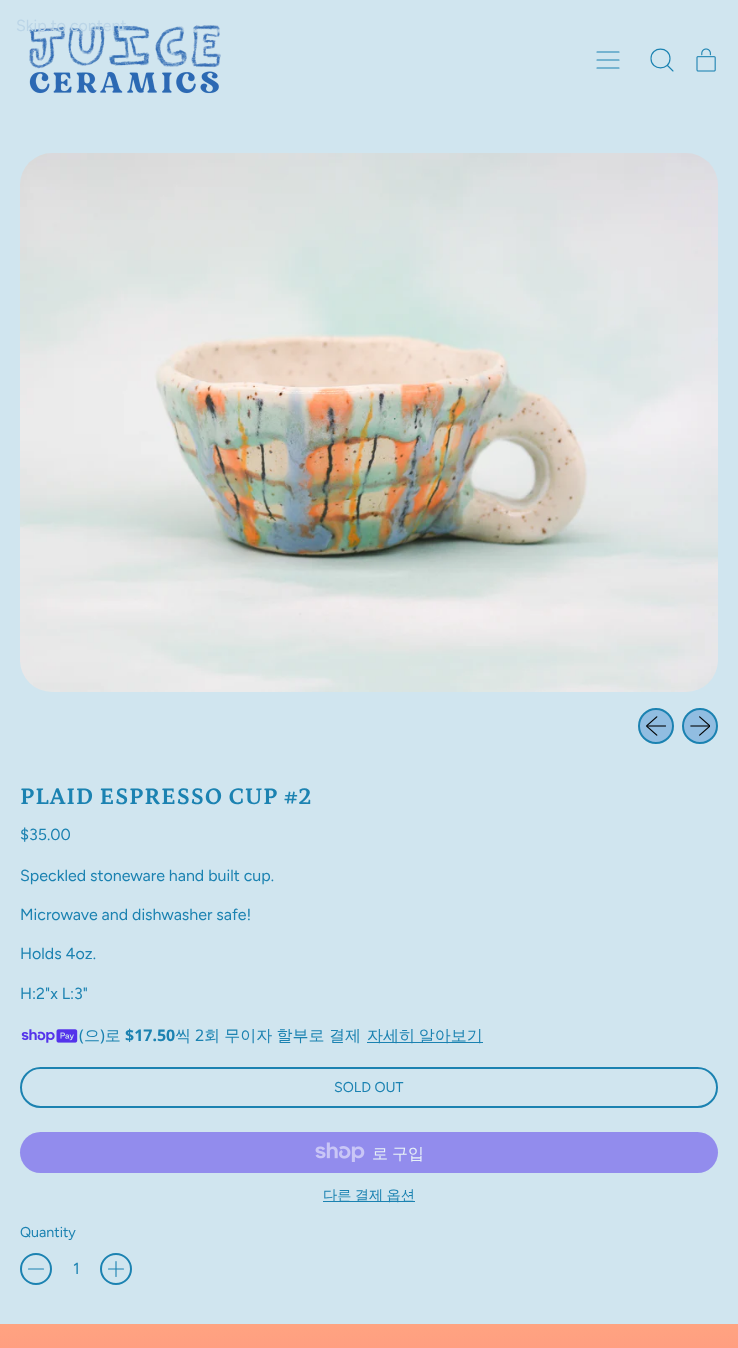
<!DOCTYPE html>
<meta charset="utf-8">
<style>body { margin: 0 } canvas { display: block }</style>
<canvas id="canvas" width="738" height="1348"></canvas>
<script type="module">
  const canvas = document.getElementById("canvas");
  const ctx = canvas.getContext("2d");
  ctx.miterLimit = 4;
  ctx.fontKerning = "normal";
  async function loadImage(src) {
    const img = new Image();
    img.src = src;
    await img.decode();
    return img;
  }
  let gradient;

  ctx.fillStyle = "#d0e5ef";
  ctx.fillRect(0, 0, 738, 1348);
  ctx.drawImage(await loadImage("img1.png"), 29, 25, 192, 69);
  ctx.font = "16px Figtree";
  ctx.fillStyle = "#bbd5e7";
  ctx.fillText("Skip to content", 16, 31);
  ctx.beginPath();
  ctx.moveTo(619, 68);
  ctx.lineTo(597, 68);
  ctx.moveTo(619, 60);
  ctx.lineTo(597, 60);
  ctx.moveTo(619, 52);
  ctx.lineTo(597, 52);
  ctx.strokeStyle = "#1b82b1";
  ctx.lineWidth = 1.1;
  ctx.lineCap = "round";
  ctx.lineJoin = "round";
  ctx.stroke();
  ctx.beginPath();
  ctx.moveTo(651, 58.5);
  ctx.bezierCurveTo(651, 71, 670, 71, 670, 58.5);
  ctx.bezierCurveTo(670, 46, 651, 46, 651, 58.5);
  ctx.closePath();
  ctx.moveTo(673, 71);
  ctx.lineTo(667.5, 65.5);
  ctx.stroke();
  ctx.drawImage(await loadImage("img2.png"), 696, 48, 20, 24);
  ctx.drawImage(await loadImage("img3.png"), 20, 153, 698, 539);
  ctx.fillStyle = "#91bde1";
  ctx.beginPath();
  ctx.arc(656, 726, 17, 0, Math.PI * 2);
  ctx.fill();
  ctx.lineWidth = 2;
  ctx.stroke();
  ctx.drawImage(await loadImage("img4.png"), 646, 716, 20, 20);
  ctx.beginPath();
  ctx.arc(700, 726, 17, 0, Math.PI * 2);
  ctx.fill();
  ctx.stroke();
  ctx.drawImage(await loadImage("img5.png"), 690, 716, 20, 20);
  ctx.letterSpacing = "0.6px";
  ctx.font = "bold 24px Petrona";
  ctx.fillStyle = "#1b82b1";
  ctx.fillText("PLAID ESPRESSO CUP #2", 20, 804);
  ctx.letterSpacing = "0px";
  ctx.font = "16px Figtree";
  ctx.fillText("$35.00", 20, 840);
  ctx.fillText("Speckled stoneware hand built cup.", 20, 881);
  ctx.fillText("Microwave and dishwasher safe!", 20, 920);
  ctx.fillText("Holds 4oz.", 20, 959);
  ctx.fillText("H:2\"x L:3\"", 20, 999);
  ctx.drawImage(await loadImage("img6.png"), 21, 1029, 57, 14);
  ctx.font = "16px Noto Sans";
  ctx.fillText("(", 79, 1041);
  ctx.font = "500 16px WenQuanYi Zen Hei";
  ctx.fillText("으 로", 84, 1041);
  ctx.font = "16px Noto Sans";
  ctx.fillText(")", 100, 1041);
  ctx.font = "bold 16px Noto Sans";
  ctx.fillText("$17.50", 125, 1041);
  ctx.font = "500 16px WenQuanYi Zen Hei";
  ctx.fillText("씩", 175, 1041);
  ctx.font = "16px Noto Sans";
  ctx.fillText("2", 195, 1041);
  ctx.wordSpacing = "-0.5px";
  ctx.font = "500 16px WenQuanYi Zen Hei";
  ctx.fillText("회 무이자 할부로 결제", 204, 1041);
  ctx.fillRect(367, 1042, 116, 1);
  ctx.wordSpacing = "-1px";
  ctx.fillText("자세히 알아보기", 367, 1041);
  ctx.beginPath();
  ctx.roundRect(21, 1068, 696, 39, 19.5);
  ctx.lineJoin = "miter";
  ctx.stroke();
  ctx.wordSpacing = "0px";
  ctx.font = "14.25px Figtree";
  ctx.fillText("SOLD OUT", 334, 1092);
  ctx.fillStyle = "#928ced";
  ctx.beginPath();
  ctx.roundRect(20, 1132, 698, 41, 20.5);
  ctx.fill();
  ctx.drawImage(await loadImage("img7.png"), 315, 1142, 50, 20);
  ctx.font = "500 16px WenQuanYi Zen Hei";
  ctx.fillStyle = "#e8f2f7";
  ctx.fillText("로", 372, 1159);
  ctx.fillText("구입", 392, 1159);
  ctx.fillStyle = "#1b82b1";
  ctx.fillRect(323, 1201, 92, 1);
  ctx.wordSpacing = "-1px";
  ctx.font = "500 14.25px WenQuanYi Zen Hei";
  ctx.fillText("다른 결제 옵션", 323, 1200);
  ctx.wordSpacing = "0px";
  ctx.font = "14.25px Figtree";
  ctx.fillText("Quantity", 20, 1237);
  ctx.beginPath();
  ctx.arc(36, 1269, 15, 0, Math.PI * 2);
  ctx.stroke();
  ctx.beginPath();
  ctx.moveTo(43.5, 1269);
  ctx.lineTo(28.5, 1269);
  ctx.lineWidth = 1.1;
  ctx.lineJoin = "round";
  ctx.stroke();
  ctx.font = "16px Figtree";
  ctx.fillText("1", 73, 1274);
  ctx.beginPath();
  ctx.arc(116, 1269, 15, 0, Math.PI * 2);
  ctx.lineWidth = 2;
  ctx.stroke();
  ctx.beginPath();
  ctx.moveTo(116, 1261.5);
  ctx.lineTo(116, 1276.5);
  ctx.moveTo(123.5, 1269);
  ctx.lineTo(108.5, 1269);
  ctx.lineWidth = 1.1;
  ctx.stroke();
  gradient = ctx.createLinearGradient(369, 1324, 369, 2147);
  gradient.addColorStop(0, "#ffa381");
  gradient.addColorStop(0.49, "#fe5b7c");
  gradient.addColorStop(1, "#ff8ca2");
  ctx.fillStyle = gradient;
  ctx.fillRect(0, 1324, 738, 24);
</script>
